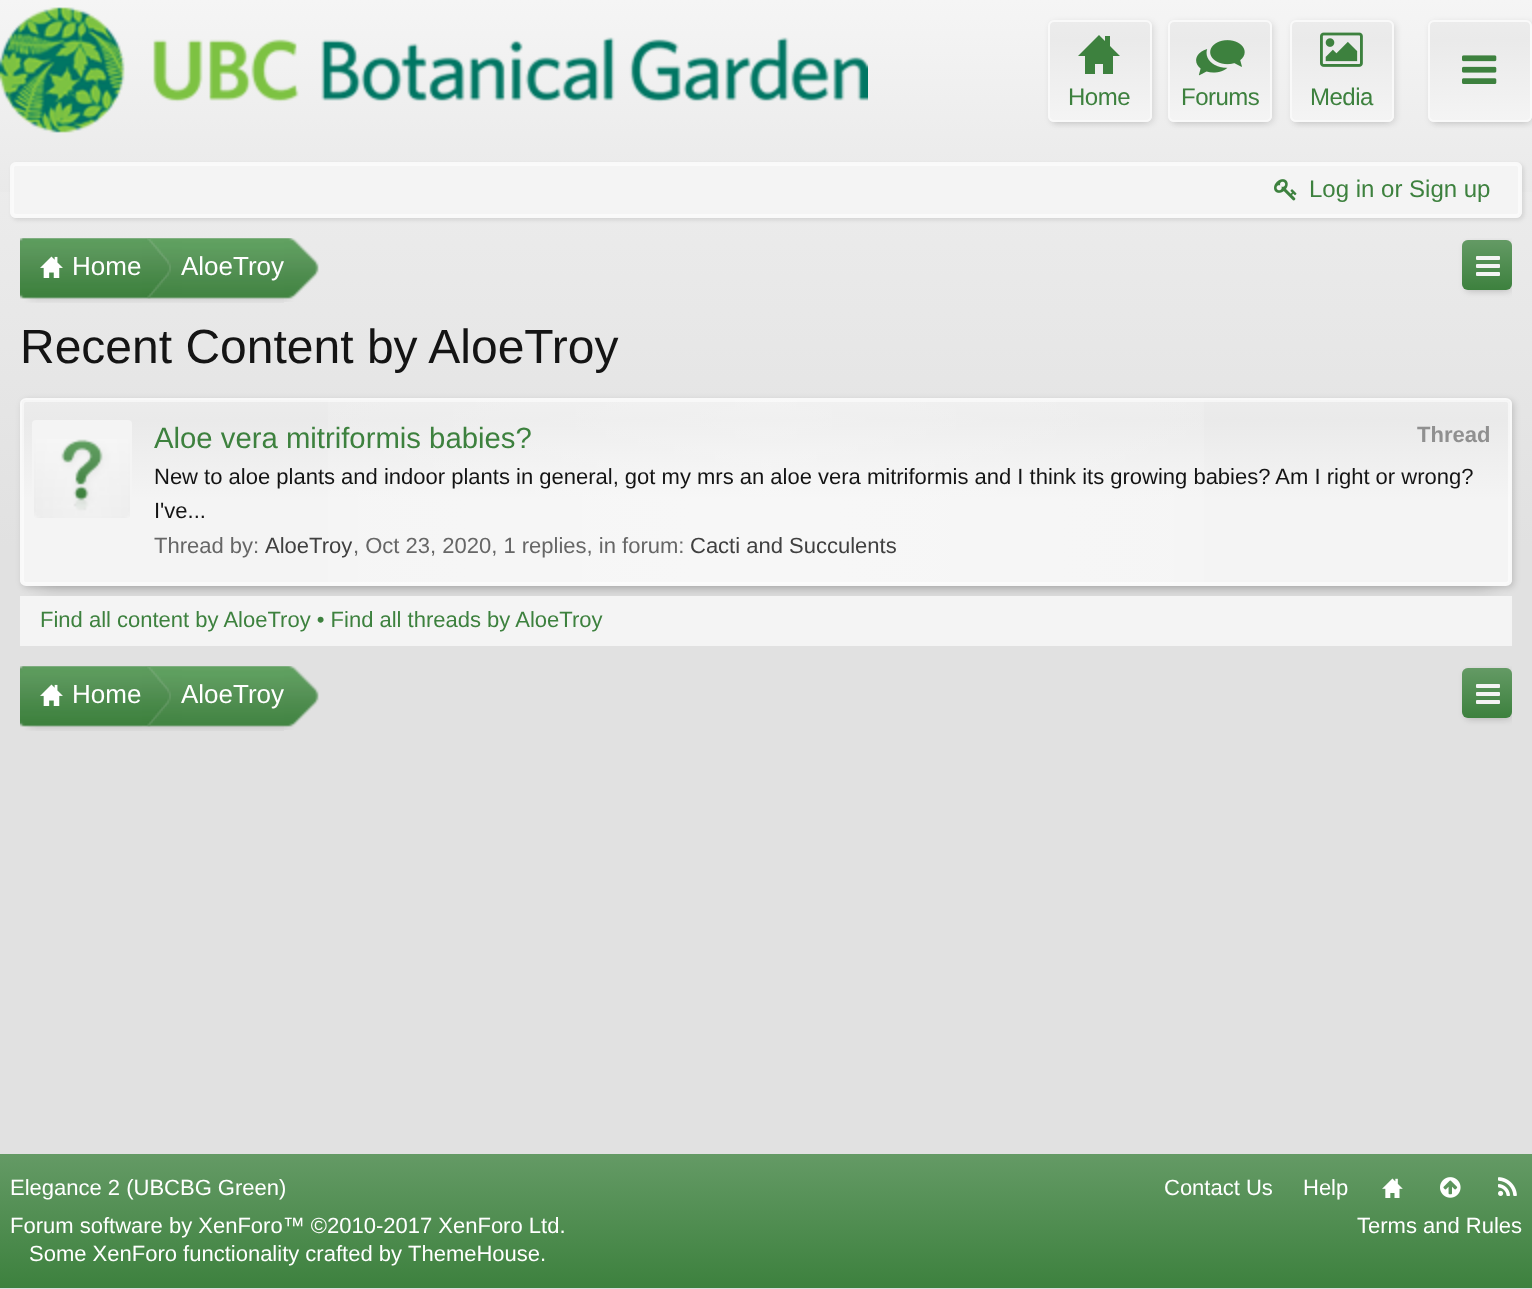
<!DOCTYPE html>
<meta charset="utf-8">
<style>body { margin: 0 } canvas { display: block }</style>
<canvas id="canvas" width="1532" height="1289"></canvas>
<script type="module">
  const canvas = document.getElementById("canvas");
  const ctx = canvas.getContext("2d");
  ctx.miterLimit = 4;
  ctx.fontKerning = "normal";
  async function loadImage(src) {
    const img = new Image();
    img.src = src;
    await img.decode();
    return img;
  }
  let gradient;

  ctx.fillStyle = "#ffffff";
  ctx.fillRect(0, 0, 1532, 1289);
  gradient = ctx.createLinearGradient(766, 0, 766, 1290);
  gradient.addColorStop(0, "#f5f5f5");
  gradient.addColorStop(0.31, "#dddddd");
  ctx.fillStyle = gradient;
  ctx.fillRect(0, 0, 1532, 1289);
  ctx.drawImage(await loadImage("img1.png"), 0, 7, 868, 126);
  ctx.fillStyle = "rgba(0, 0, 0, 0.1)";
  ctx.filter = "blur(3px)";
  ctx.beginPath();
  ctx.rect(1054, 32, 92, 90);
  ctx.fill();
  ctx.filter = "none";
  ctx.filter = "blur(3px)";
  ctx.beginPath();
  ctx.roundRect(1050, 22, 104, 102, 6);
  ctx.fill();
  ctx.filter = "none";
  gradient = ctx.createLinearGradient(1100, 20, 1100, 122);
  gradient.addColorStop(0, "#ececec");
  gradient.addColorStop(0.2, "#eaeaea");
  gradient.addColorStop(0.98, "#f4f4f4");
  ctx.fillStyle = gradient;
  ctx.beginPath();
  ctx.roundRect(1048, 20, 104, 102, 6);
  ctx.fill();
  ctx.beginPath();
  ctx.roundRect(1049, 21, 102, 100, 5);
  ctx.strokeStyle = "rgba(255, 255, 255, 0.3)";
  ctx.lineWidth = 2;
  ctx.stroke();
  ctx.beginPath();
  ctx.roundRect(1049, 21, 102, 100, 5);
  ctx.strokeStyle = "#f9f9f9";
  ctx.stroke();
  ctx.fillStyle = "#3d813e";
  ctx.beginPath();
  ctx.moveTo(1085, 74);
  ctx.lineTo(1085, 56);
  ctx.lineTo(1078, 56);
  ctx.lineTo(1099, 35);
  ctx.lineTo(1105, 41);
  ctx.lineTo(1105, 36);
  ctx.lineTo(1110, 36);
  ctx.lineTo(1110, 46);
  ctx.lineTo(1120, 56);
  ctx.lineTo(1113, 56);
  ctx.lineTo(1113, 74);
  ctx.lineTo(1103, 74);
  ctx.lineTo(1103, 64);
  ctx.lineTo(1095, 64);
  ctx.lineTo(1095, 74);
  ctx.closePath();
  ctx.fill();
  ctx.letterSpacing = "-0.5px";
  ctx.font = "24px Liberation Sans";
  ctx.fillText("Home", 1068, 105);
  ctx.fillStyle = "rgba(0, 0, 0, 0.1)";
  ctx.filter = "blur(3px)";
  ctx.beginPath();
  ctx.rect(1174, 32, 92, 90);
  ctx.fill();
  ctx.filter = "none";
  ctx.filter = "blur(3px)";
  ctx.beginPath();
  ctx.roundRect(1170, 22, 104, 102, 6);
  ctx.fill();
  ctx.filter = "none";
  gradient = ctx.createLinearGradient(1220, 20, 1220, 122);
  gradient.addColorStop(0, "#ececec");
  gradient.addColorStop(0.2, "#eaeaea");
  gradient.addColorStop(0.98, "#f4f4f4");
  ctx.fillStyle = gradient;
  ctx.beginPath();
  ctx.roundRect(1168, 20, 104, 102, 6);
  ctx.fill();
  ctx.beginPath();
  ctx.roundRect(1169, 21, 102, 100, 5);
  ctx.strokeStyle = "rgba(255, 255, 255, 0.3)";
  ctx.stroke();
  ctx.beginPath();
  ctx.roundRect(1169, 21, 102, 100, 5);
  ctx.strokeStyle = "#f9f9f9";
  ctx.stroke();
  ctx.drawImage(await loadImage("img2.png"), 1196, 40, 49, 36);
  ctx.fillStyle = "#3d813e";
  ctx.fillText("Forums", 1181, 105);
  ctx.fillStyle = "rgba(0, 0, 0, 0.1)";
  ctx.filter = "blur(3px)";
  ctx.beginPath();
  ctx.rect(1296, 32, 92, 90);
  ctx.fill();
  ctx.filter = "none";
  ctx.filter = "blur(3px)";
  ctx.beginPath();
  ctx.roundRect(1292, 22, 104, 102, 6);
  ctx.fill();
  ctx.filter = "none";
  gradient = ctx.createLinearGradient(1342, 20, 1342, 122);
  gradient.addColorStop(0, "#ececec");
  gradient.addColorStop(0.2, "#eaeaea");
  gradient.addColorStop(0.98, "#f4f4f4");
  ctx.fillStyle = gradient;
  ctx.beginPath();
  ctx.roundRect(1290, 20, 104, 102, 6);
  ctx.fill();
  ctx.beginPath();
  ctx.roundRect(1291, 21, 102, 100, 5);
  ctx.strokeStyle = "rgba(255, 255, 255, 0.3)";
  ctx.stroke();
  ctx.beginPath();
  ctx.roundRect(1291, 21, 102, 100, 5);
  ctx.strokeStyle = "#f9f9f9";
  ctx.stroke();
  ctx.drawImage(await loadImage("img3.png"), 1320, 32, 43, 35);
  ctx.fillStyle = "#3d813e";
  ctx.fillText("Media", 1310, 105);
  ctx.fillStyle = "rgba(0, 0, 0, 0.1)";
  ctx.filter = "blur(3px)";
  ctx.beginPath();
  ctx.rect(1434, 32, 92, 90);
  ctx.fill();
  ctx.filter = "none";
  ctx.filter = "blur(3px)";
  ctx.beginPath();
  ctx.roundRect(1430, 22, 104, 102, 6);
  ctx.fill();
  ctx.filter = "none";
  gradient = ctx.createLinearGradient(1480, 20, 1480, 122);
  gradient.addColorStop(0, "#ececec");
  gradient.addColorStop(0.2, "#eaeaea");
  gradient.addColorStop(0.98, "#f4f4f4");
  ctx.fillStyle = gradient;
  ctx.beginPath();
  ctx.roundRect(1428, 20, 104, 102, 6);
  ctx.fill();
  ctx.beginPath();
  ctx.roundRect(1429, 21, 102, 100, 5);
  ctx.strokeStyle = "rgba(255, 255, 255, 0.3)";
  ctx.stroke();
  ctx.beginPath();
  ctx.roundRect(1429, 21, 102, 100, 5);
  ctx.strokeStyle = "#f9f9f9";
  ctx.stroke();
  ctx.drawImage(await loadImage("img4.png"), 1462, 55, 35, 29);
  gradient = ctx.createLinearGradient(766, 142, 766, 1154);
  gradient.addColorStop(0, "#ededed");
  gradient.addColorStop(0.4, "#e1e1e1");
  ctx.fillStyle = gradient;
  ctx.fillRect(0, 192, 1532, 962);
  ctx.fillStyle = "rgba(0, 0, 0, 0.1)";
  ctx.filter = "blur(2px)";
  ctx.beginPath();
  ctx.roundRect(12, 164, 1512, 56, 6);
  ctx.fill();
  ctx.filter = "none";
  ctx.fillStyle = "#f4f4f4";
  ctx.beginPath();
  ctx.roundRect(10, 162, 1512, 56, 6);
  ctx.fill();
  ctx.beginPath();
  ctx.roundRect(13, 165, 1506, 50, 3);
  ctx.strokeStyle = "#fafafa";
  ctx.stroke();
  ctx.beginPath();
  ctx.roundRect(11, 163, 1510, 54, 5);
  ctx.strokeStyle = "#f9f9f9";
  ctx.stroke();
  ctx.drawImage(await loadImage("img5.png"), 1274, 179, 23, 22);
  ctx.letterSpacing = "0px";
  ctx.fillStyle = "#3d813e";
  ctx.fillText("Log in or Sign up", 1309, 197);
  ctx.drawImage(await loadImage("img6.png"), 60, 238, 82, 65);
  ctx.drawImage(await loadImage("img7.png"), 20, 238, 40, 65);
  ctx.drawImage(await loadImage("img8.png"), 40, 256, 23, 22);
  ctx.font = "26px Liberation Sans";
  ctx.fillStyle = "#ffffff";
  ctx.fillText("Home", 72, 275);
  ctx.drawImage(await loadImage("img9.png"), 142, 238, 29, 61);
  ctx.drawImage(await loadImage("img10.png"), 182, 238, 102, 65);
  ctx.drawImage(await loadImage("img11.png"), 142, 238, 40, 65);
  ctx.fillText("AloeTroy", 181, 275);
  ctx.drawImage(await loadImage("img12.png"), 284, 238, 35, 64);
  ctx.fillStyle = "rgba(0, 0, 0, 0.1)";
  ctx.filter = "blur(3px)";
  ctx.beginPath();
  ctx.rect(1468, 252, 38, 38);
  ctx.fill();
  ctx.filter = "none";
  ctx.save();
  ctx.beginPath();
  ctx.rect(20, 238, 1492, 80);
  ctx.clip();
  ctx.filter = "blur(3px)";
  ctx.beginPath();
  ctx.roundRect(1464, 242, 50, 50, 6);
  ctx.fill();
  ctx.filter = "none";
  ctx.restore();
  ctx.fillStyle = "#3d813e";
  ctx.beginPath();
  ctx.roundRect(1462, 240, 50, 50, 6);
  ctx.fill();
  gradient = ctx.createLinearGradient(1487, 240, 1487, 290);
  gradient.addColorStop(0, "rgba(255, 255, 255, 0.2)");
  gradient.addColorStop(1, "rgba(255, 255, 255, 0)");
  ctx.fillStyle = gradient;
  ctx.beginPath();
  ctx.roundRect(1462, 240, 50, 50, 6);
  ctx.fill();
  ctx.drawImage(await loadImage("img13.png"), 1476, 256, 24, 20);
  ctx.font = "48px Liberation Sans";
  ctx.fillStyle = "#141414";
  ctx.fillText("Recent Content by AloeTroy", 20, 363);
  ctx.fillStyle = "rgba(0, 0, 0, 0.2)";
  ctx.filter = "blur(10px)";
  ctx.beginPath();
  ctx.rect(40, 438, 1452, 148);
  ctx.fill();
  ctx.filter = "none";
  ctx.fillStyle = "rgba(0, 0, 0, 0.15)";
  ctx.filter = "blur(3px)";
  ctx.beginPath();
  ctx.roundRect(22, 400, 1492, 188, 6);
  ctx.fill();
  ctx.filter = "none";
  ctx.save();
  ctx.beginPath();
  ctx.roundRect(20, 398, 1492, 188, 6);
  ctx.clip();
  gradient = ctx.createLinearGradient(766, 400, 766, 584);
  gradient.addColorStop(0, "#ececec");
  gradient.addColorStop(0.11, "#eaeaea");
  gradient.addColorStop(0.54, "#f4f4f4");
  ctx.fillStyle = gradient;
  ctx.fillRect(20, 400, 1492, 184);
  ctx.restore();
  gradient = ctx.createLinearGradient(22, 492, 1510, 492);
  gradient.addColorStop(0, "rgba(255, 255, 255, 0)");
  gradient.addColorStop(0.5, "rgba(255, 255, 255, 0.3)");
  gradient.addColorStop(1, "rgba(255, 255, 255, 0)");
  ctx.fillStyle = gradient;
  ctx.fillRect(328, 400, 876, 184);
  ctx.beginPath();
  ctx.roundRect(23, 401, 1486, 182, 3);
  ctx.strokeStyle = "rgba(255, 255, 255, 0.5)";
  ctx.stroke();
  ctx.beginPath();
  ctx.roundRect(21, 399, 1490, 186, 5);
  ctx.strokeStyle = "#f9f9f9";
  ctx.stroke();
  ctx.fillStyle = "#f4f4f4";
  ctx.beginPath();
  ctx.roundRect(32, 420, 100, 100, 4);
  ctx.fill();
  ctx.drawImage(await loadImage("img14.png"), 34, 439, 96, 79);
  ctx.font = "29.3px Liberation Sans";
  ctx.fillStyle = "#3d813e";
  ctx.fillText("Aloe vera mitriformis babies?", 154, 448);
  ctx.font = "bold 22px Liberation Sans";
  ctx.fillStyle = "#909090";
  ctx.fillText("Thread", 1417, 442);
  ctx.font = "22px Liberation Sans";
  ctx.fillStyle = "#141414";
  ctx.fillText("New to aloe plants and indoor plants in general, got my mrs an aloe vera mitriformis and I think its growing babies? Am I right or wrong?", 154, 484);
  ctx.fillText("I've...", 154, 518);
  ctx.fillStyle = "#666666";
  ctx.fillText("Thread by:", 154, 553);
  ctx.fillStyle = "#404040";
  ctx.fillText("AloeTroy", 265, 553);
  ctx.fillStyle = "#666666";
  ctx.fillText(", Oct 23, 2020, 1 replies, in forum:", 353, 553);
  ctx.fillStyle = "#404040";
  ctx.fillText("Cacti and Succulents", 690, 553);
  ctx.fillStyle = "#f4f4f4";
  ctx.fillRect(20, 596, 1492, 50);
  ctx.fillStyle = "#3d813e";
  ctx.fillText("Find all content by AloeTroy • Find all threads by AloeTroy", 40, 627);
  ctx.drawImage(await loadImage("img15.png"), 60, 666, 82, 65);
  ctx.drawImage(await loadImage("img16.png"), 20, 666, 40, 65);
  ctx.drawImage(await loadImage("img8.png"), 40, 684, 23, 22);
  ctx.font = "26px Liberation Sans";
  ctx.fillStyle = "#ffffff";
  ctx.fillText("Home", 72, 703);
  ctx.drawImage(await loadImage("img17.png"), 142, 666, 29, 61);
  ctx.drawImage(await loadImage("img18.png"), 182, 666, 102, 65);
  ctx.drawImage(await loadImage("img19.png"), 142, 666, 40, 65);
  ctx.fillText("AloeTroy", 181, 703);
  ctx.drawImage(await loadImage("img20.png"), 284, 666, 35, 64);
  ctx.fillStyle = "rgba(0, 0, 0, 0.1)";
  ctx.filter = "blur(3px)";
  ctx.beginPath();
  ctx.rect(1468, 680, 38, 38);
  ctx.fill();
  ctx.filter = "none";
  ctx.save();
  ctx.beginPath();
  ctx.rect(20, 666, 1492, 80);
  ctx.clip();
  ctx.filter = "blur(3px)";
  ctx.beginPath();
  ctx.roundRect(1464, 670, 50, 50, 6);
  ctx.fill();
  ctx.filter = "none";
  ctx.restore();
  ctx.fillStyle = "#3d813e";
  ctx.beginPath();
  ctx.roundRect(1462, 668, 50, 50, 6);
  ctx.fill();
  gradient = ctx.createLinearGradient(1487, 668, 1487, 718);
  gradient.addColorStop(0, "rgba(255, 255, 255, 0.2)");
  gradient.addColorStop(1, "rgba(255, 255, 255, 0)");
  ctx.fillStyle = gradient;
  ctx.beginPath();
  ctx.roundRect(1462, 668, 50, 50, 6);
  ctx.fill();
  ctx.drawImage(await loadImage("img13.png"), 1476, 684, 24, 20);
  gradient = ctx.createLinearGradient(766, 1154, 766, 1288);
  gradient.addColorStop(0, "#649a65");
  gradient.addColorStop(1, "#3d813e");
  ctx.fillStyle = gradient;
  ctx.fillRect(0, 1154, 1532, 134);
  ctx.font = "22px Liberation Sans";
  ctx.fillStyle = "#ffffff";
  ctx.fillText("Elegance 2 (UBCBG Green)", 10, 1195);
  ctx.fillText("Contact Us", 1164, 1195);
  ctx.fillText("Help", 1303, 1195);
  ctx.drawImage(await loadImage("img21.png"), 1382, 1178, 21, 20);
  ctx.drawImage(await loadImage("img22.png"), 1440, 1177, 21, 21);
  ctx.drawImage(await loadImage("img23.png"), 1498, 1177, 19, 19);
  ctx.fillText("Forum software by XenForo™ ©2010-2017 XenForo Ltd.", 10, 1233);
  ctx.fillText("Some XenForo functionality crafted by", 29, 1261);
  ctx.fillText("ThemeHouse.", 408, 1261);
  ctx.fillText("Terms and Rules", 1357, 1233);
</script>
